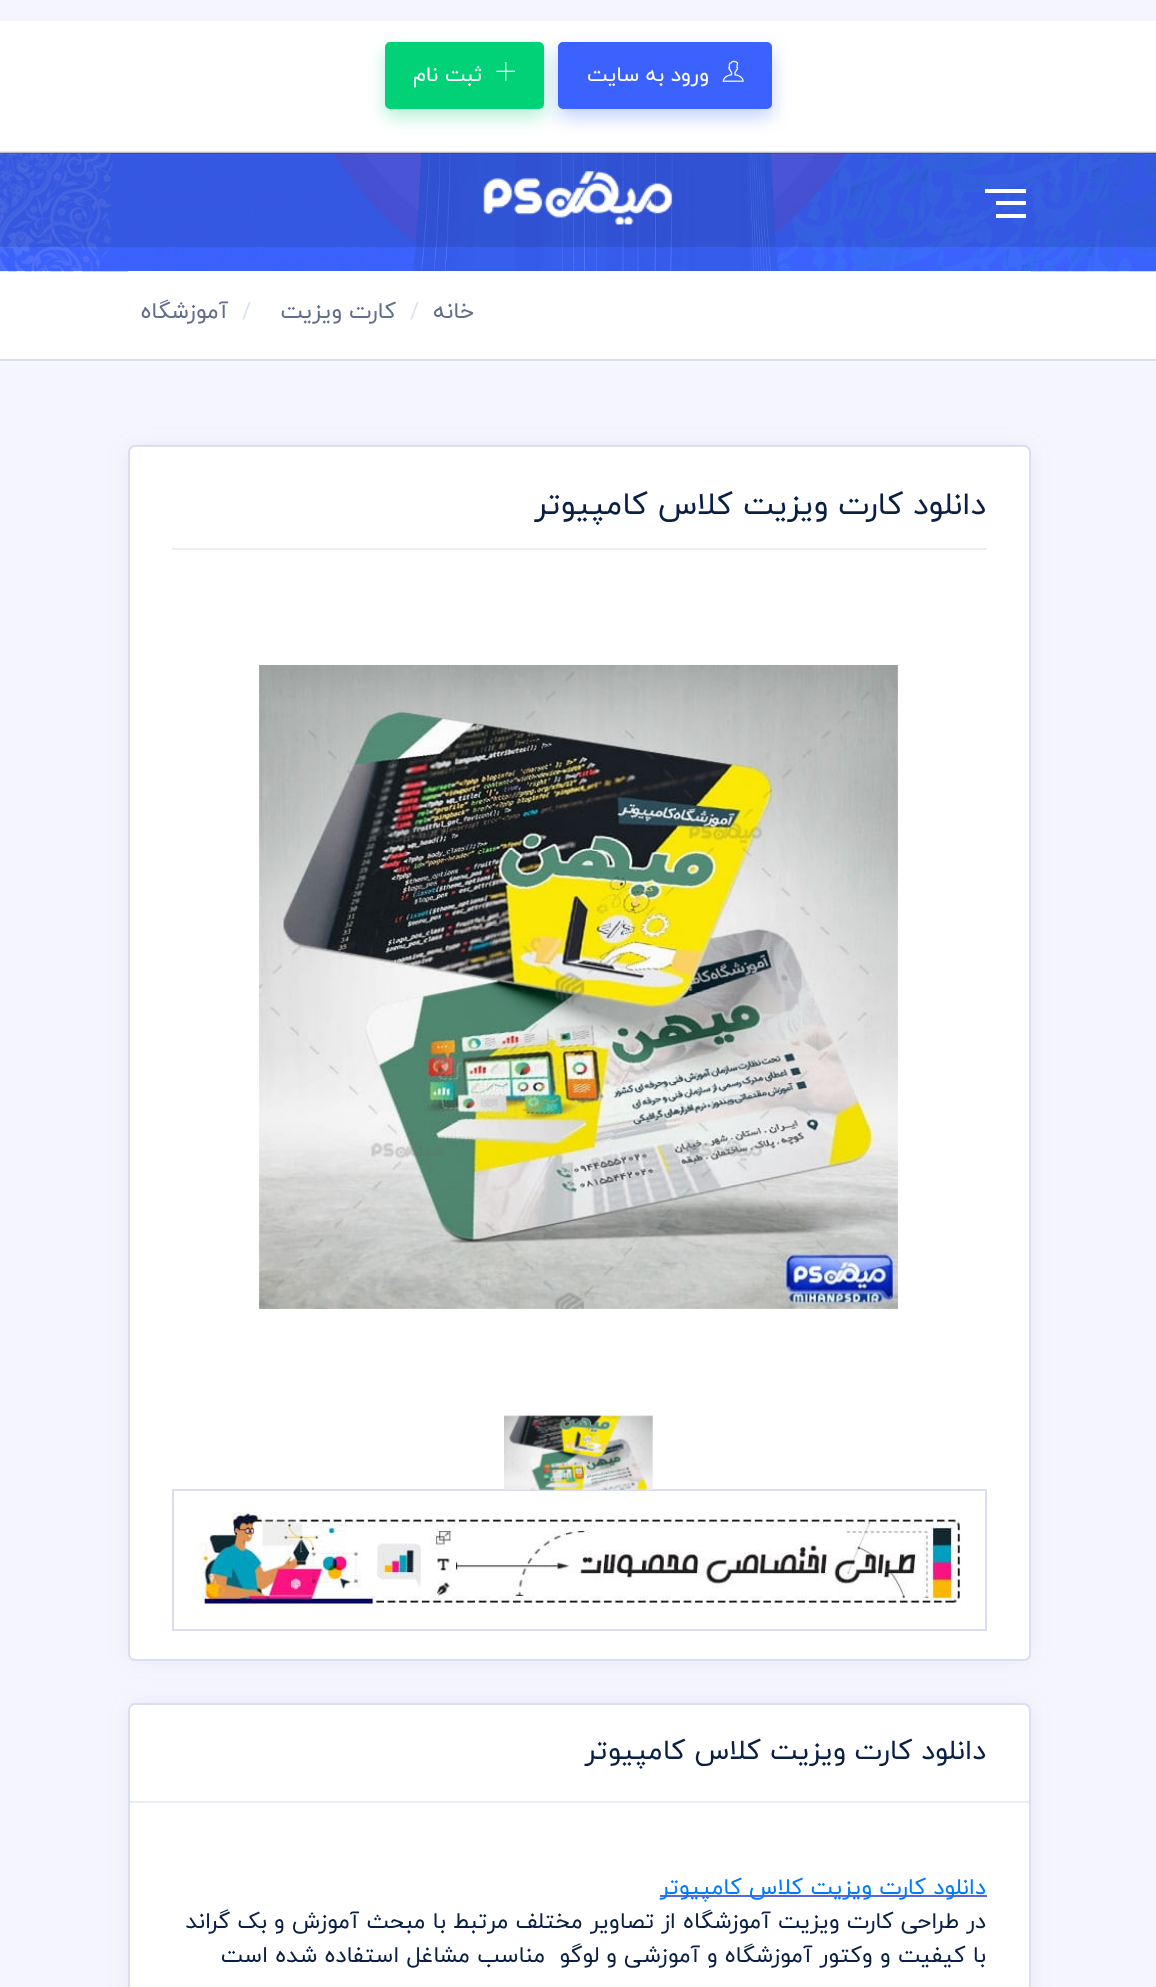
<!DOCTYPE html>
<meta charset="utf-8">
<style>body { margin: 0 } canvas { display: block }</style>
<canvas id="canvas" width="1156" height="1987"></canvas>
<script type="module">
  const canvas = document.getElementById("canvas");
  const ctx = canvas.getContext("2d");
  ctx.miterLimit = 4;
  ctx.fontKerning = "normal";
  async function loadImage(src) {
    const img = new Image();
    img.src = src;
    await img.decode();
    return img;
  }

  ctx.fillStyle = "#f5f6fd";
  ctx.fillRect(0, 0, 1156, 1987);
  ctx.fillStyle = "#ffffff";
  ctx.fillRect(0, 271, 1156, 88);
  ctx.drawImage(await loadImage("img1.png"), 0, 153, 1156, 119);
  ctx.fillRect(0, 21, 1156, 130);
  ctx.fillStyle = "#e6e7f5";
  ctx.fillRect(0, 151, 1156, 2);
  ctx.fillStyle = "rgba(59, 98, 254, 0.3)";
  ctx.filter = "blur(9px)";
  ctx.beginPath();
  ctx.roundRect(558, 51, 214, 66, 5);
  ctx.fill();
  ctx.filter = "none";
  ctx.fillStyle = "#3b62fe";
  ctx.beginPath();
  ctx.roundRect(559, 43, 212, 65, 4);
  ctx.fill();
  ctx.strokeStyle = "#3b62fe";
  ctx.lineWidth = 2;
  ctx.stroke();
  ctx.drawImage(await loadImage("img2.png"), 722, 60, 22, 22);
  ctx.direction = "rtl";
  ctx.font = "21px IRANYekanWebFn";
  ctx.fillStyle = "#ffffff";
  ctx.fillText("ورود به سایت", 709, 81);
  ctx.fillStyle = "rgba(1, 210, 119, 0.3)";
  ctx.filter = "blur(9px)";
  ctx.beginPath();
  ctx.roundRect(385, 51, 159, 66, 5);
  ctx.fill();
  ctx.filter = "none";
  ctx.fillStyle = "#01d277";
  ctx.beginPath();
  ctx.roundRect(386, 43, 157, 65, 4);
  ctx.fill();
  ctx.strokeStyle = "#01d277";
  ctx.stroke();
  ctx.drawImage(await loadImage("img3.png"), 496, 62, 19, 19);
  ctx.fillStyle = "#ffffff";
  ctx.fillText("ثبت نام", 482, 81);
  ctx.fillStyle = "rgba(0, 0, 0, 0.1)";
  ctx.fillRect(0, 152, 1156, 95);
  ctx.fillRect(0, 152, 1156, 2);
  ctx.fillStyle = "#ffffff";
  ctx.fillRect(996, 201, 30, 4);
  ctx.fillRect(985, 189, 41, 4);
  ctx.fillRect(996, 214, 30, 4);
  ctx.drawImage(await loadImage("img4.png"), 483, 171, 190, 54);
  ctx.fillStyle = "#dbddf1";
  ctx.fillRect(0, 359, 1156, 2);
  ctx.fillStyle = "#ffffff";
  ctx.fillRect(128, 271, 903, 1);
  ctx.font = "22.75px IRANYekanWebFn";
  ctx.fillStyle = "#636d8c";
  ctx.fillText("خانه", 474, 318);
  ctx.direction = "ltr";
  ctx.fillStyle = "#dce3ef";
  ctx.fillText("/", 410, 318);
  ctx.direction = "rtl";
  ctx.fillStyle = "#636d8c";
  ctx.fillText("کارت ویزیت", 396, 318);
  ctx.direction = "ltr";
  ctx.fillStyle = "#dce3ef";
  ctx.fillText("/", 242, 318);
  ctx.direction = "rtl";
  ctx.fillStyle = "#636d8c";
  ctx.fillText("آموزشگاه", 228, 318);
  ctx.fillStyle = "rgba(21, 17, 148, 0.06)";
  ctx.filter = "blur(10.5px)";
  ctx.beginPath();
  ctx.roundRect(128, 445, 903, 1216, 7);
  ctx.fill();
  ctx.filter = "none";
  ctx.fillStyle = "#ffffff";
  ctx.beginPath();
  ctx.roundRect(129, 446, 901, 1214, 6);
  ctx.fill();
  ctx.strokeStyle = "#dbddf1";
  ctx.stroke();
  ctx.fillStyle = "#eeeeee";
  ctx.fillRect(172, 548, 815, 2);
  ctx.font = "31.5px IRANYekanWebFn";
  ctx.fillStyle = "#0a1f44";
  ctx.fillText("دانلود کارت ویزیت کلاس کامپیوتر", 986, 514);
  ctx.drawImage(await loadImage("img5.png"), 259, 665, 639, 644);
  ctx.strokeRect(173, 1490, 813, 140);
  ctx.drawImage(await loadImage("img6.png"), 504, 1415, 149, 75);
  ctx.drawImage(await loadImage("img7.png"), 194, 1512, 767, 92);
  ctx.fillStyle = "rgba(21, 17, 148, 0.06)";
  ctx.filter = "blur(10.5px)";
  ctx.beginPath();
  ctx.roundRect(128, 1703, 903, 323, 7);
  ctx.fill();
  ctx.filter = "none";
  ctx.fillStyle = "#ffffff";
  ctx.beginPath();
  ctx.roundRect(129, 1704, 901, 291, 6);
  ctx.fill();
  ctx.stroke();
  ctx.fillStyle = "#eaebf7";
  ctx.fillRect(130, 1801, 899, 2);
  ctx.font = "28px IRANYekanWebFn";
  ctx.fillStyle = "#0a1f44";
  ctx.fillText("دانلود کارت ویزیت کلاس کامپیوتر", 986, 1759);
  ctx.fillStyle = "#5867dd";
  ctx.fillRect(660, 1895, 327, 2);
  ctx.font = "22.75px IRANYekanWebFn";
  ctx.fillStyle = "#007bff";
  ctx.fillText("دانلود کارت ویزیت کلاس کامپیوتر", 986, 1894);
  ctx.fillStyle = "#0a1f44";
  ctx.fillText("در طراحی کارت ویزیت آموزشگاه از تصاویر مختلف مرتبط با مبحث آموزش و بک گراند", 986, 1928);
  ctx.fillText("با کیفیت و وکتور آموزشگاه و آموزشی و لوگو  مناسب مشاغل استفاده شده است", 986, 1962);
</script>
